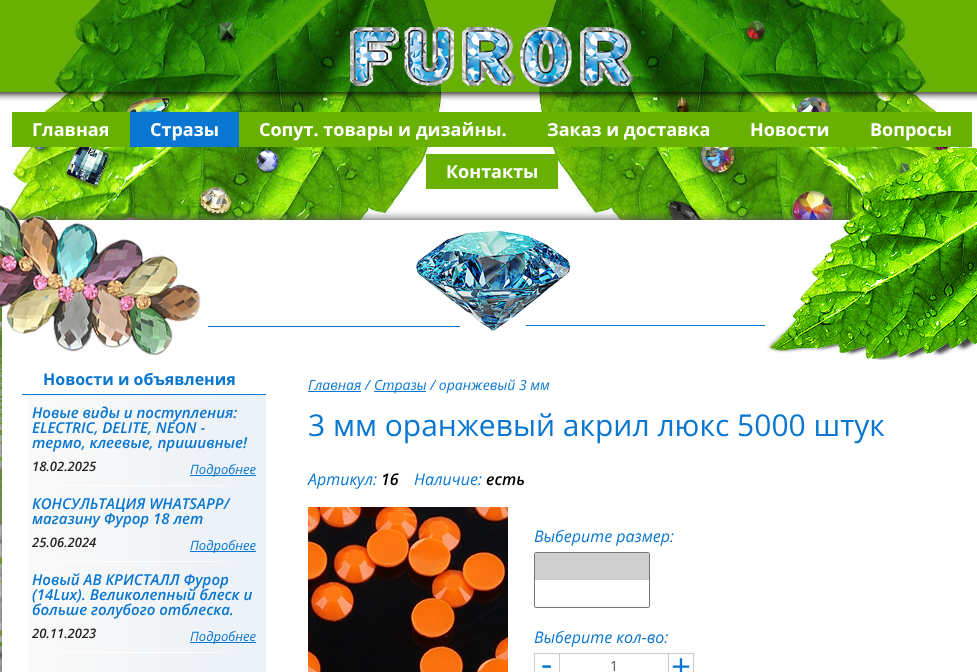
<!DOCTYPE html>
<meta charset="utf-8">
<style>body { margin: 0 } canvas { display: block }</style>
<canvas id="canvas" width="977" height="672"></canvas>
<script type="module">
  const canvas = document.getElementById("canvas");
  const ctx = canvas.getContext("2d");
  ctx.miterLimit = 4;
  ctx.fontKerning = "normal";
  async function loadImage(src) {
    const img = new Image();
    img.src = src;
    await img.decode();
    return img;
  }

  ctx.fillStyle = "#ffffff";
  ctx.fillRect(0, 0, 977, 672);
  ctx.drawImage(await loadImage("img1.png"), 0, 0, 977, 672);
  ctx.drawImage(await loadImage("img2.png"), 350, 27, 284, 60);
  ctx.fillStyle = "#555555";
  ctx.filter = "blur(5px)";
  ctx.beginPath();
  ctx.rect(1, 219, 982, 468);
  ctx.fill();
  ctx.filter = "none";
  ctx.fillStyle = "#ffffff";
  ctx.fillRect(2, 220, 975, 452);
  ctx.drawImage(await loadImage("img3.png"), 0, 146, 977, 214);
  ctx.fillStyle = "#68b102";
  ctx.fillRect(12, 112, 118, 35);
  ctx.font = "bold 18px Open Sans";
  ctx.fillStyle = "#ffffff";
  ctx.fillText("Главная", 32, 136);
  ctx.fillStyle = "#0977d1";
  ctx.fillRect(130, 112, 109, 35);
  ctx.fillStyle = "#ffffff";
  ctx.fillText("Стразы", 150, 136);
  ctx.fillStyle = "#68b102";
  ctx.fillRect(239, 112, 733, 35);
  ctx.fillStyle = "#ffffff";
  ctx.fillText("Сопут. товары и дизайны.", 259, 136);
  ctx.fillText("Заказ и доставка", 547, 136);
  ctx.fillText("Новости", 750, 136);
  ctx.fillText("Вопросы", 870, 136);
  ctx.fillStyle = "#68b102";
  ctx.fillRect(426, 154, 132, 35);
  ctx.fillStyle = "#ffffff";
  ctx.fillText("Контакты", 446, 178);
  ctx.font = "bold 16px Open Sans";
  ctx.fillStyle = "#0977d1";
  ctx.fillText("Новости и объявления", 43, 385);
  ctx.drawImage(await loadImage("img4.png"), 28, 395, 238, 277);
  ctx.fillRect(22, 394, 244, 1);
  ctx.drawImage(await loadImage("img5.png"), 61, 485, 175, 1);
  ctx.font = "italic 600 15px Open Sans";
  ctx.fillText("Новые виды и поступления:", 32, 418);
  ctx.fillText("ELECTRIC, DELITE, NEON -", 32, 433);
  ctx.fillText("термо, клеевые, пришивные!", 32, 448);
  ctx.font = "italic 600 13px Open Sans";
  ctx.fillStyle = "#232323";
  ctx.fillText("18.02.2025", 32, 471);
  ctx.fillStyle = "#0977d1";
  ctx.fillRect(190, 475, 66, 1);
  ctx.font = "italic 13px Open Sans";
  ctx.fillText("Подробнее", 190, 474);
  ctx.drawImage(await loadImage("img5.png"), 61, 561, 175, 1);
  ctx.font = "italic 600 15px Open Sans";
  ctx.fillText("КОНСУЛЬТАЦИЯ WHATSAPP/", 32, 509);
  ctx.fillText("магазину Фурор 18 лет", 32, 524);
  ctx.font = "italic 600 13px Open Sans";
  ctx.fillStyle = "#232323";
  ctx.fillText("25.06.2024", 32, 547);
  ctx.fillStyle = "#0977d1";
  ctx.fillRect(190, 551, 66, 1);
  ctx.font = "italic 13px Open Sans";
  ctx.fillText("Подробнее", 190, 550);
  ctx.drawImage(await loadImage("img5.png"), 61, 652, 175, 1);
  ctx.font = "italic 600 15px Open Sans";
  ctx.fillText("Новый АВ КРИСТАЛЛ Фурор", 32, 585);
  ctx.fillText("(14Lux). Великолепный блеск и", 32, 600);
  ctx.fillText("больше голубого отблеска.", 32, 615);
  ctx.font = "italic 600 13px Open Sans";
  ctx.fillStyle = "#232323";
  ctx.fillText("20.11.2023", 32, 638);
  ctx.fillStyle = "#0977d1";
  ctx.fillRect(190, 642, 66, 1);
  ctx.font = "italic 13px Open Sans";
  ctx.fillText("Подробнее", 190, 641);
  ctx.font = "italic 14px Open Sans";
  ctx.fillText("Главная /", 308, 390);
  ctx.fillRect(308, 391, 53, 1);
  ctx.fillRect(374, 391, 52, 1);
  ctx.fillText("Стразы / оранжевый 3 мм", 374, 390);
  ctx.font = "30px Open Sans";
  ctx.fillText("3 мм оранжевый акрил люкс 5000 штук", 308, 436);
  ctx.font = "italic 16px Open Sans";
  ctx.fillText("Артикул:", 308, 485);
  ctx.font = "italic 600 16px Open Sans";
  ctx.fillStyle = "#000000";
  ctx.fillText("16", 381, 485);
  ctx.font = "italic 16px Open Sans";
  ctx.fillStyle = "#0977d1";
  ctx.fillText("Наличие:", 414, 485);
  ctx.font = "italic 600 16px Open Sans";
  ctx.fillStyle = "#000000";
  ctx.fillText("есть", 486, 485);
  ctx.drawImage(await loadImage("img6.png"), 308, 507, 200, 165);
  ctx.font = "italic 16px Open Sans";
  ctx.fillStyle = "#0977d1";
  ctx.fillText("Выберите размер:", 534, 542);
  ctx.beginPath();
  ctx.roundRect(534.5, 552.5, 115, 55, 1.5);
  ctx.strokeStyle = "#767676";
  ctx.stroke();
  ctx.fillStyle = "#cecece";
  ctx.beginPath();
  ctx.roundRect(535, 553, 114, 27, [1, 1, 0, 0]);
  ctx.fill();
  ctx.fillStyle = "#0977d1";
  ctx.fillText("Выберите кол-во:", 534, 643);
  ctx.strokeStyle = "#cccccc";
  ctx.strokeRect(534.5, 653.5, 25, 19);
  ctx.font = "35px Open Sans";
  ctx.fillText("-", 541, 676);
  ctx.fillStyle = "#cccccc";
  ctx.fillRect(560, 653, 108, 1);
  ctx.font = "14px Open Sans";
  ctx.fillStyle = "#545454";
  ctx.fillText("1", 610, 671);
  ctx.strokeRect(668.5, 653.5, 25, 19);
  ctx.font = "35px Open Sans";
  ctx.fillStyle = "#0977d1";
  ctx.fillText("+", 671, 679);
</script>
